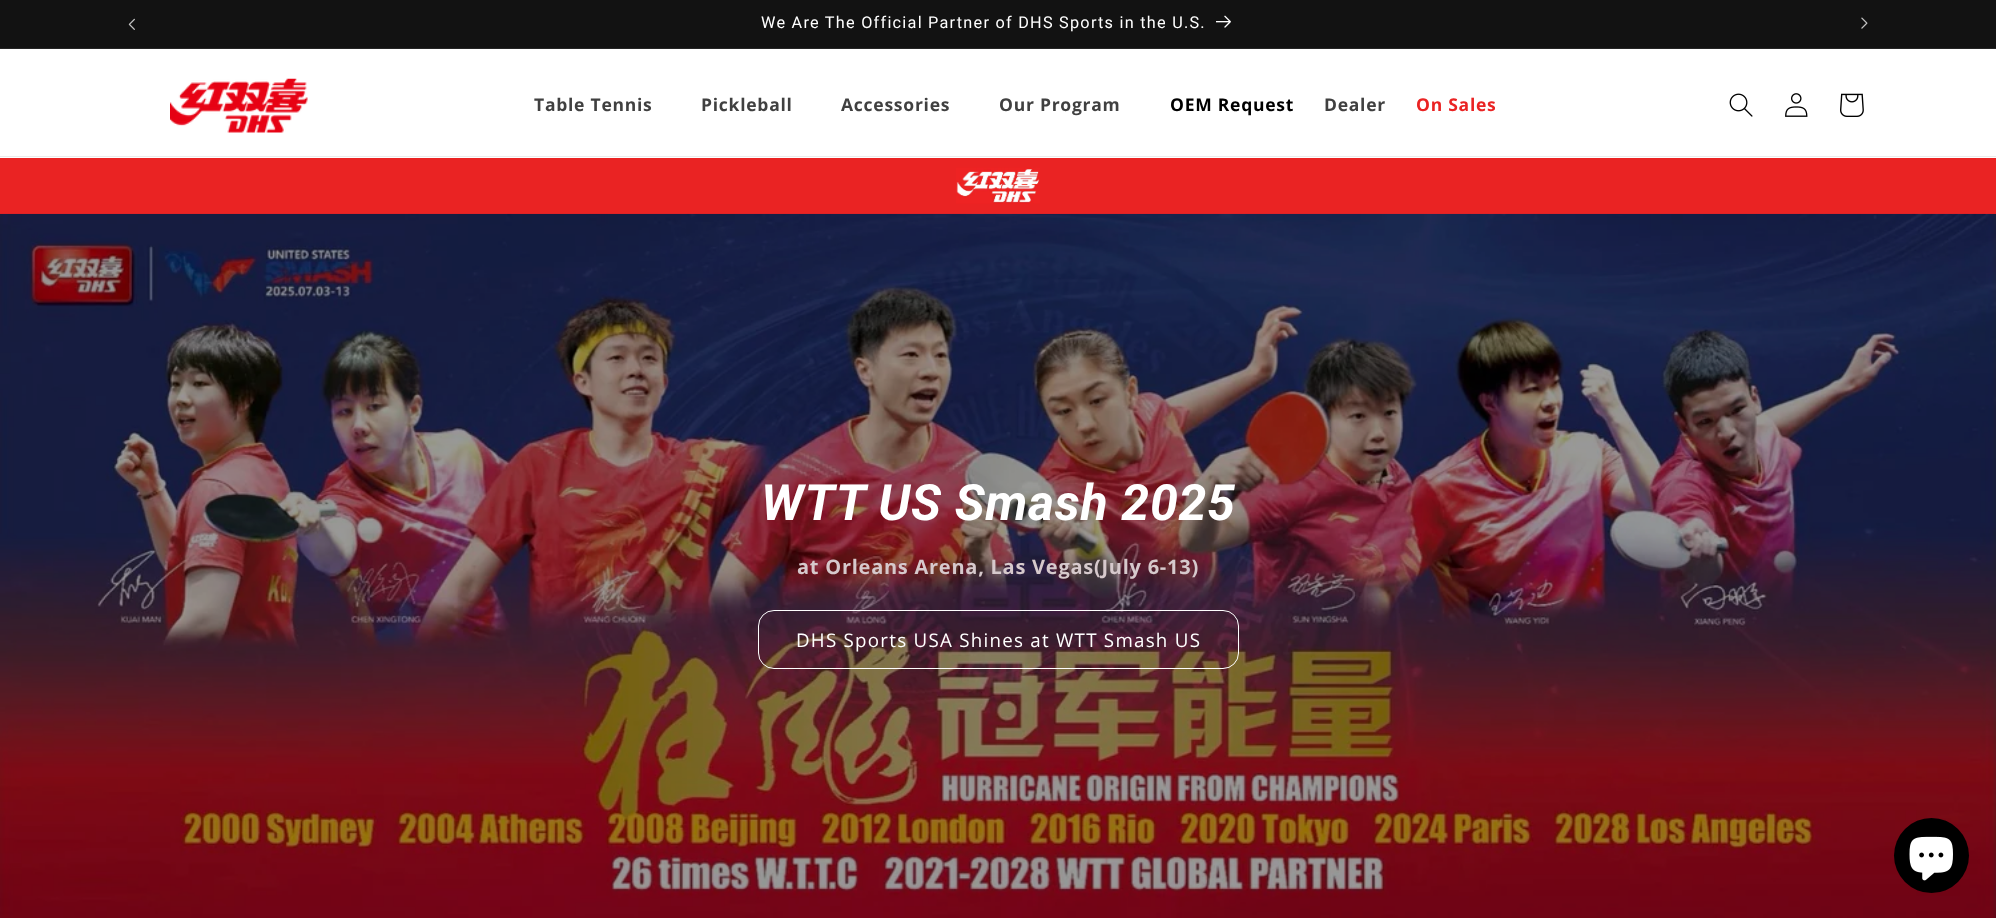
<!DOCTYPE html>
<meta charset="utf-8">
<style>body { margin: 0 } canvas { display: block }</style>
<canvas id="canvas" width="1996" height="918"></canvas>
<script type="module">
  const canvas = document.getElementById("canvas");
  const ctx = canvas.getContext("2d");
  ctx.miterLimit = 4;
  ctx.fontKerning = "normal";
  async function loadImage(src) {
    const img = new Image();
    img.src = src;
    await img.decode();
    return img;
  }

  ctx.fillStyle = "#ffffff";
  ctx.fillRect(0, 0, 1996, 918);
  ctx.fillStyle = "#121212";
  ctx.fillRect(0, 0, 1996, 48);
  ctx.fillStyle = "#252525";
  ctx.fillRect(0, 48, 1996, 1);
  ctx.drawImage(await loadImage("img1.png"), 128, 18, 7, 12);
  ctx.letterSpacing = "1.25px";
  ctx.font = "16.25px Roboto";
  ctx.fillStyle = "#ffffff";
  ctx.fillText("We Are The Official Partner of DHS Sports in the U.S.", 761, 28);
  ctx.drawImage(await loadImage("img2.png"), 1216, 15, 15, 13);
  ctx.drawImage(await loadImage("img3.png"), 1861, 17, 7, 12);
  ctx.fillStyle = "#ebebeb";
  ctx.fillRect(0, 156, 1996, 1);
  ctx.drawImage(await loadImage("img4.png"), 170, 78, 138, 55);
  ctx.letterSpacing = "0.75px";
  ctx.font = "bold 17.5px Open Sans";
  ctx.fillStyle = "#404040";
  ctx.fillText("Table Tennis", 534, 111);
  ctx.fillText("Pickleball", 701, 111);
  ctx.fillText("Accessories", 841, 111);
  ctx.fillText("Our Program", 999, 111);
  ctx.fillStyle = "#000000";
  ctx.fillText("OEM Request", 1170, 111);
  ctx.fillStyle = "#404040";
  ctx.fillText("Dealer", 1324, 111);
  ctx.fillStyle = "#ea2323";
  ctx.fillText("On Sales", 1416, 111);
  ctx.drawImage(await loadImage("img5.png"), 1729, 93, 24, 24);
  ctx.drawImage(await loadImage("img6.png"), 1785, 93, 23, 24);
  ctx.drawImage(await loadImage("img7.png"), 1840, 93, 24, 24);
  ctx.fillRect(0, 158, 1996, 56);
  ctx.drawImage(await loadImage("img8.png"), 956, 167, 84, 37);
  ctx.drawImage(await loadImage("img9.png"), 0, 213, 1996, 705);
  ctx.font = "italic bold 50px Roboto";
  ctx.fillStyle = "#ffffff";
  ctx.fillText("WTT US Smash 2025", 761, 520);
  ctx.font = "bold 20px Open Sans";
  ctx.fillStyle = "#d6c9cc";
  ctx.fillText("at Orleans Arena, Las Vegas(July 6-13)", 797, 574);
  ctx.beginPath();
  ctx.roundRect(758.5, 610.5, 480, 58, 15.5);
  ctx.strokeStyle = "#ffffff";
  ctx.stroke();
  ctx.letterSpacing = "1.25px";
  ctx.font = "18.75px Open Sans";
  ctx.fillStyle = "#ffffff";
  ctx.fillText("DHS Sports USA Shines at WTT Smash US", 796, 647);
  ctx.fillStyle = "#000000";
  ctx.beginPath();
  ctx.arc(1931.5, 855.5, 37.5, 0, Math.PI * 2);
  ctx.fill();
  ctx.drawImage(await loadImage("img10.png"), 1909, 836, 44, 45);
</script>
